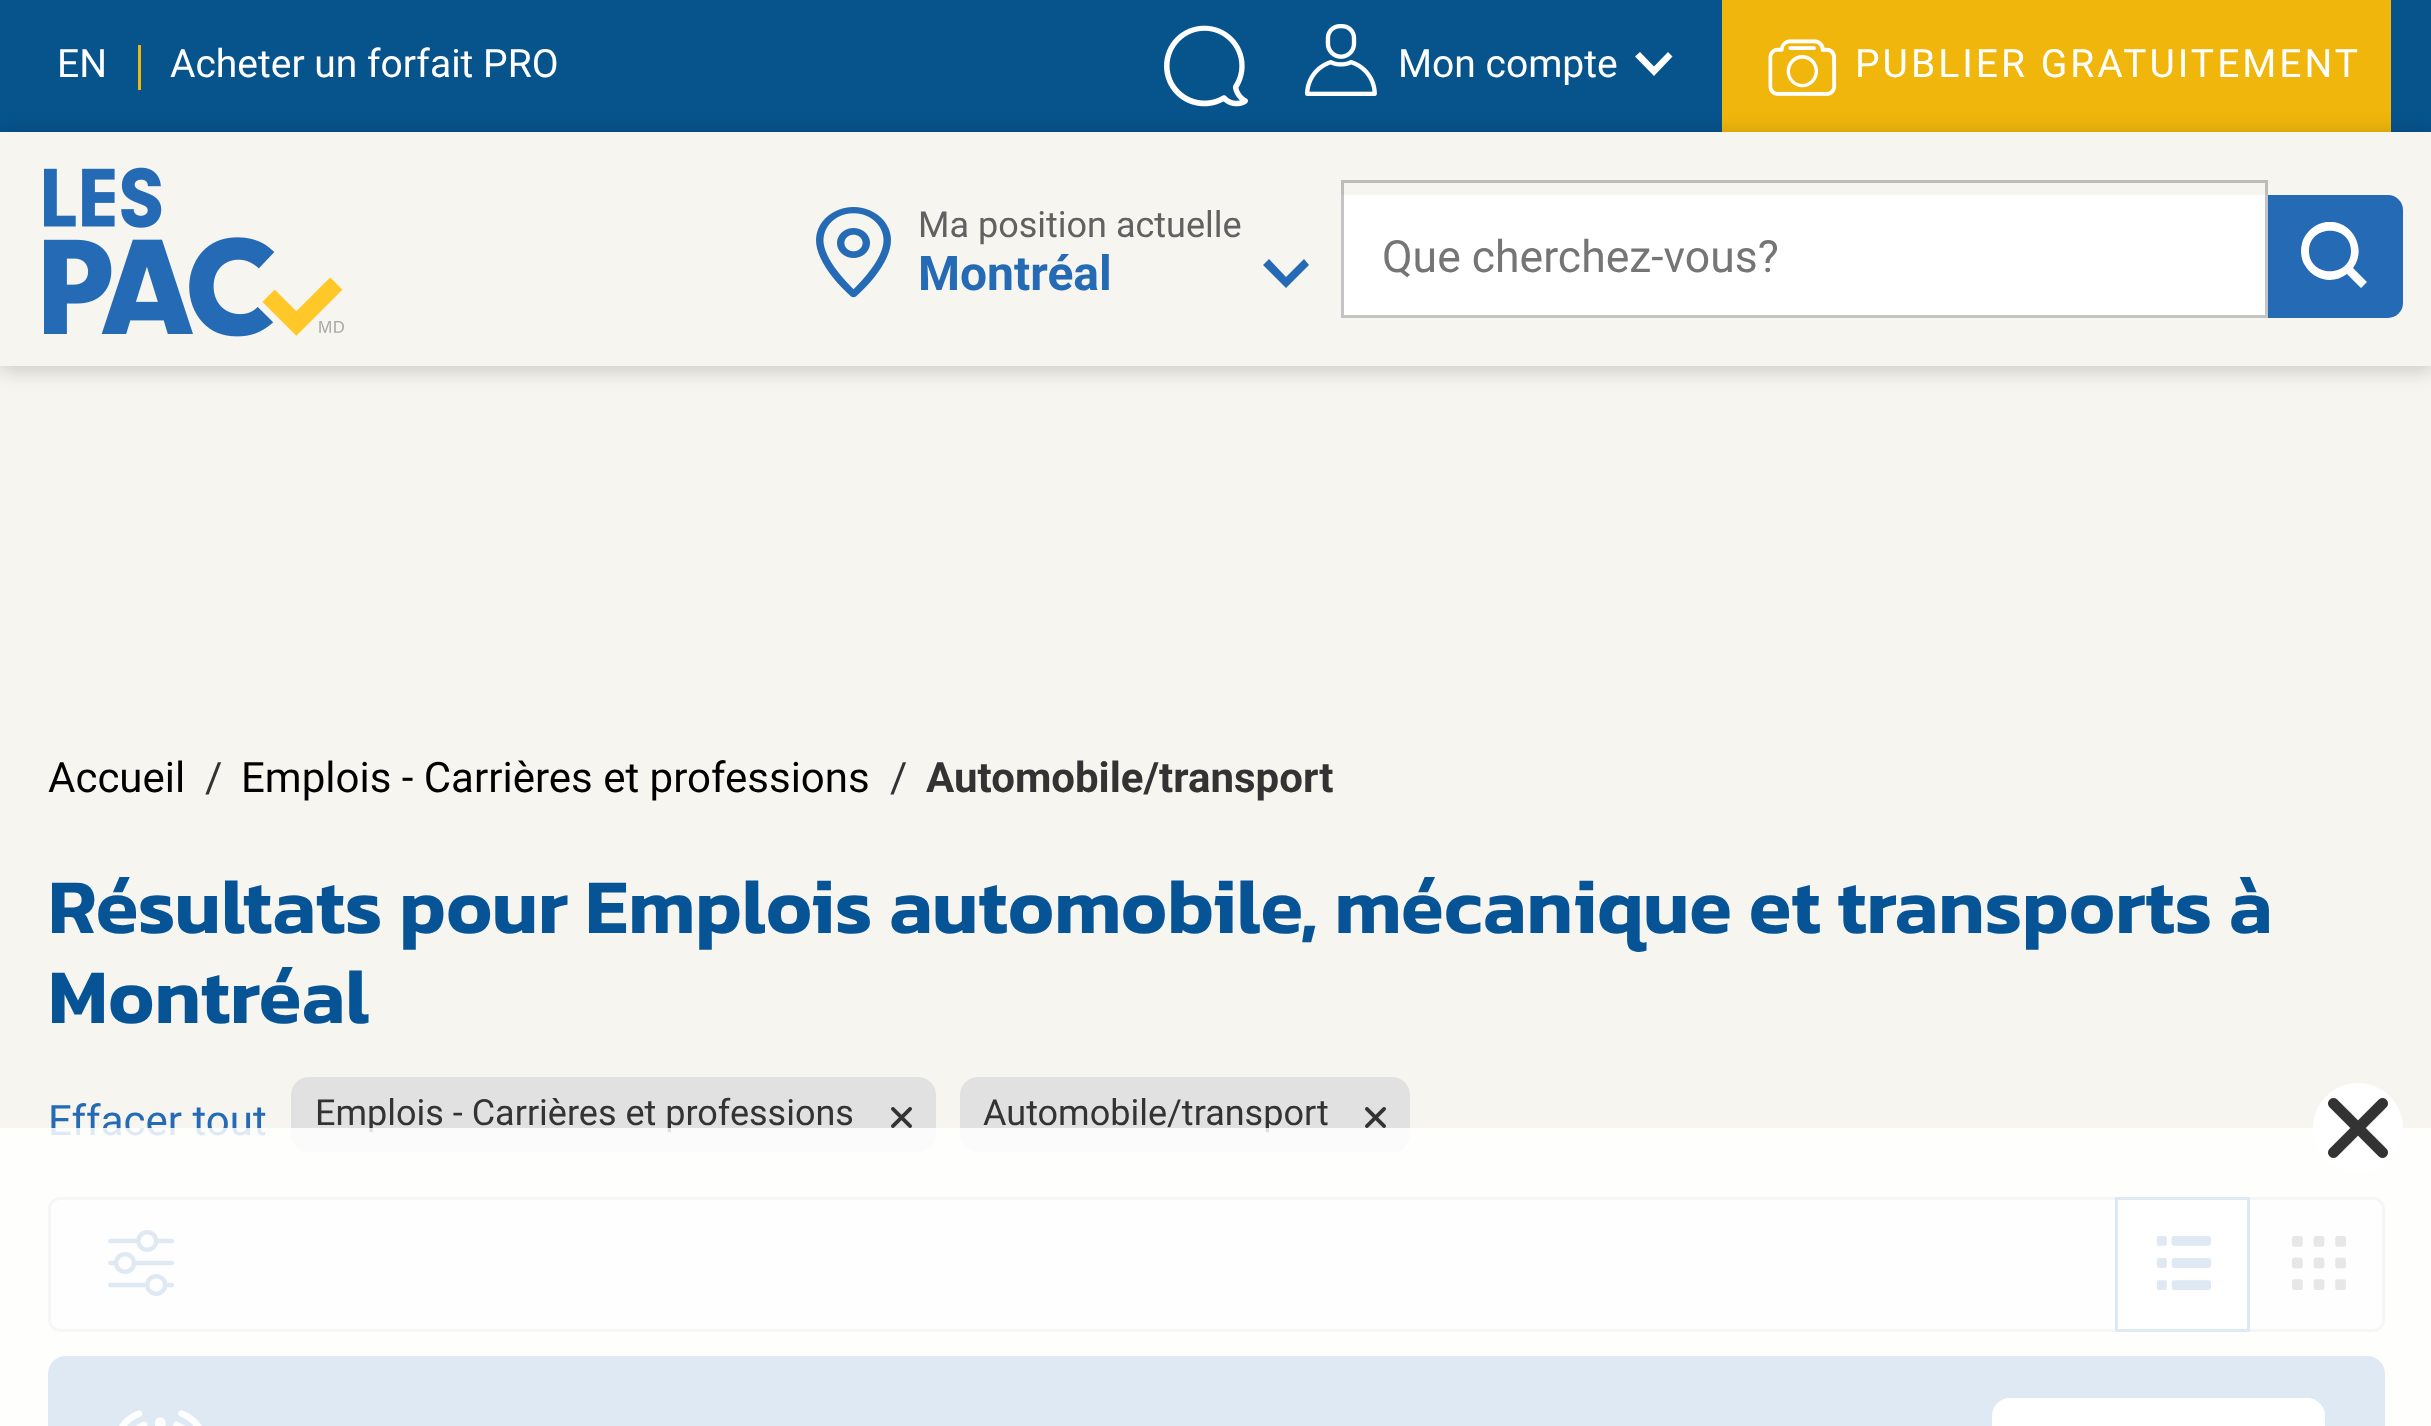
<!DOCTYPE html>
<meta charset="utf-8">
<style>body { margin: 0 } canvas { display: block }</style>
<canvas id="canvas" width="2431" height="1426"></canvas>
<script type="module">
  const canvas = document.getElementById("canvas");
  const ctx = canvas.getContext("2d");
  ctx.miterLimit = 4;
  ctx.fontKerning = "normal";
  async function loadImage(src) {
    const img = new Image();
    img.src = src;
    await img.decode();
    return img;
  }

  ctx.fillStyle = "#f6f5f0";
  ctx.fillRect(0, 0, 2431, 1426);
  ctx.fillStyle = "#07538c";
  ctx.fillRect(0, 0, 2431, 132);
  ctx.font = "39px Roboto";
  ctx.fillStyle = "#ffffff";
  ctx.fillText("EN", 57, 77);
  ctx.fillStyle = "#f0b60c";
  ctx.fillRect(138, 45, 3, 45);
  ctx.fillStyle = "#ffffff";
  ctx.fillText("Acheter un forfait PRO", 170, 77);
  ctx.drawImage(await loadImage("img1.png"), 1164, 25, 84, 82);
  ctx.drawImage(await loadImage("img2.png"), 1305, 24, 72, 72);
  ctx.fillText("Mon compte", 1398, 77);
  ctx.beginPath();
  ctx.moveTo(1635, 56.5);
  ctx.lineTo(1640, 52);
  ctx.lineTo(1654, 66.5);
  ctx.lineTo(1668, 52);
  ctx.lineTo(1672.5, 56.5);
  ctx.lineTo(1654, 76);
  ctx.closePath();
  ctx.fill();
  ctx.fillStyle = "#f0b60c";
  ctx.fillRect(1722, 0, 669, 132);
  ctx.drawImage(await loadImage("img3.png"), 1768, 39, 69, 57);
  ctx.letterSpacing = "3px";
  ctx.fillStyle = "#ffffff";
  ctx.fillText("PUBLIER GRATUITEMENT", 1855, 77);
  ctx.fillStyle = "rgba(0, 0, 0, 0.2)";
  ctx.filter = "blur(10.5px)";
  ctx.beginPath();
  ctx.rect(0, 135, 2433, 234);
  ctx.fill();
  ctx.filter = "none";
  ctx.fillStyle = "#f6f5f0";
  ctx.fillRect(0, 132, 2431, 234);
  ctx.drawImage(await loadImage("img4.png"), 44, 167, 300, 170);
  ctx.drawImage(await loadImage("img5.png"), 816, 207, 75, 91);
  ctx.letterSpacing = "0px";
  ctx.font = "36px Roboto";
  ctx.fillStyle = "#626161";
  ctx.fillText("Ma position actuelle", 918, 237);
  ctx.font = "bold 48px Roboto";
  ctx.fillStyle = "#246ab4";
  ctx.fillText("Montréal", 918, 290);
  ctx.beginPath();
  ctx.moveTo(1263, 265);
  ctx.lineTo(1269, 259);
  ctx.lineTo(1286, 277);
  ctx.lineTo(1304, 259);
  ctx.lineTo(1309, 265);
  ctx.lineTo(1286, 288);
  ctx.closePath();
  ctx.fill();
  ctx.beginPath();
  ctx.roundRect(2265, 195, 138, 123, [0, 15, 15, 0]);
  ctx.fill();
  ctx.fillStyle = "#ffffff";
  ctx.fillRect(1341, 195, 927, 123);
  ctx.strokeStyle = "rgba(0, 0, 0, 0.23)";
  ctx.lineWidth = 3;
  ctx.strokeRect(1342.5, 181.5, 924, 135);
  ctx.font = "44.5px Roboto";
  ctx.fillStyle = "#757575";
  ctx.fillText("Que cherchez-vous?", 1382, 272);
  ctx.save();
  ctx.beginPath();
  ctx.rect(2301, 222, 66, 66);
  ctx.clip();
  ctx.fillStyle = "#ffffff";
  ctx.beginPath();
  ctx.moveTo(2309, 251);
  ctx.bezierCurveTo(2309, 224, 2351, 224, 2351, 251);
  ctx.bezierCurveTo(2351, 278, 2309, 278, 2309, 251);
  ctx.closePath();
  ctx.moveTo(2367, 282);
  ctx.lineTo(2353, 268);
  ctx.bezierCurveTo(2370, 245, 2346, 213, 2319, 224);
  ctx.bezierCurveTo(2312, 227, 2306, 233, 2303, 240);
  ctx.bezierCurveTo(2300, 249, 2300, 259, 2306, 267);
  ctx.bezierCurveTo(2315, 281, 2334, 284, 2347, 274);
  ctx.lineTo(2361, 288);
  ctx.closePath();
  ctx.fill();
  ctx.restore();
  ctx.font = "42px Roboto";
  ctx.fillStyle = "#000000";
  ctx.fillText("Accueil", 48, 792);
  ctx.fillStyle = "#333333";
  ctx.fillText("/", 205, 792);
  ctx.fillStyle = "#000000";
  ctx.fillText("Emplois - Carrières et professions", 241, 792);
  ctx.fillStyle = "#333333";
  ctx.fillText("/", 890, 792);
  ctx.font = "bold 42px Roboto";
  ctx.fillText("Automobile/transport", 926, 792);
  ctx.font = "600 78px Kanit";
  ctx.fillStyle = "#065496";
  ctx.fillText("Résultats pour Emplois automobile, mécanique et transports à", 48, 933);
  ctx.fillText("Montréal", 48, 1023);
  ctx.font = "42px Roboto";
  ctx.fillStyle = "#246ab4";
  ctx.fillText("Effacer tout", 48, 1135);
  ctx.fillStyle = "#e1e1e1";
  ctx.beginPath();
  ctx.roundRect(291, 1077, 645, 75, 18);
  ctx.fill();
  ctx.font = "36px Roboto";
  ctx.fillStyle = "#333333";
  ctx.fillText("Emplois - Carrières et professions", 315, 1125);
  ctx.drawImage(await loadImage("img6.png"), 891, 1107, 21, 21);
  ctx.fillStyle = "#e1e1e1";
  ctx.beginPath();
  ctx.roundRect(960, 1077, 450, 75, 18);
  ctx.fill();
  ctx.fillStyle = "#333333";
  ctx.fillText("Automobile/transport", 983, 1125);
  ctx.drawImage(await loadImage("img6.png"), 1365, 1107, 21, 21);
  ctx.fillStyle = "#f4f4f4";
  ctx.beginPath();
  ctx.roundRect(49.5, 1198.5, 2334, 132, 10.5);
  ctx.fill();
  ctx.strokeStyle = "#c4c4c4";
  ctx.stroke();
  ctx.drawImage(await loadImage("img7.png"), 108, 1230, 66, 66);
  ctx.fillStyle = "#ffffff";
  ctx.beginPath();
  ctx.rect(2116.5, 1198.5, 132, 132);
  ctx.fill();
  ctx.strokeStyle = "#246ab4";
  ctx.stroke();
  ctx.drawImage(await loadImage("img8.png"), 2157, 1236, 54, 54);
  ctx.drawImage(await loadImage("img9.png"), 2292, 1236, 54, 54);
  ctx.fillStyle = "#246ab4";
  ctx.beginPath();
  ctx.roundRect(48, 1356, 2337, 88, 18);
  ctx.fill();
  ctx.drawImage(await loadImage("img10.png"), 118, 1410, 84, 16);
  ctx.fillStyle = "#ffffff";
  ctx.beginPath();
  ctx.roundRect(1992, 1398, 333, 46, 18);
  ctx.fill();
  ctx.fillStyle = "rgba(255, 255, 255, 0.85)";
  ctx.fillRect(0, 1128, 2431, 298);
  ctx.fillStyle = "#ffffff";
  ctx.beginPath();
  ctx.arc(2358, 1128, 45, 0, Math.PI * 2);
  ctx.fill();
  ctx.drawImage(await loadImage("img11.png"), 2328, 1098, 60, 60);
</script>
